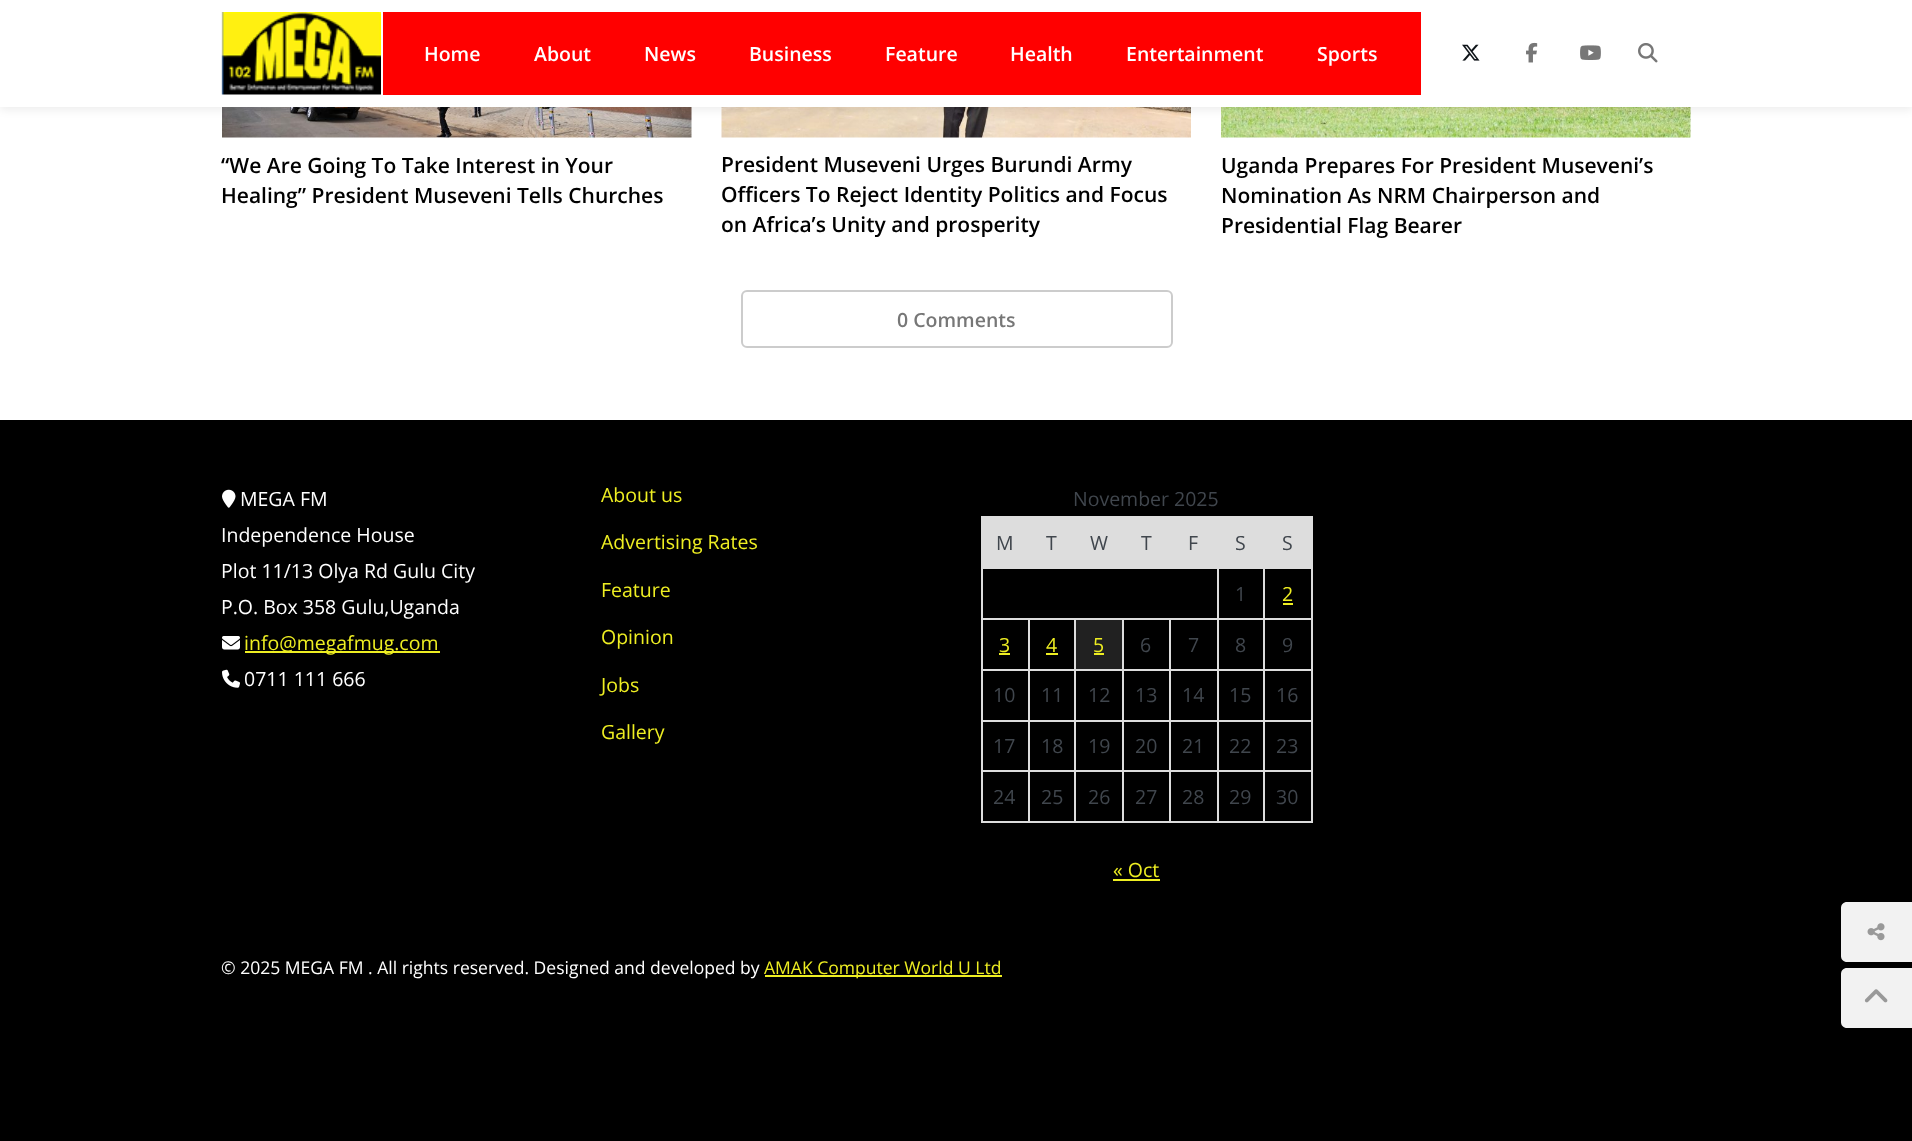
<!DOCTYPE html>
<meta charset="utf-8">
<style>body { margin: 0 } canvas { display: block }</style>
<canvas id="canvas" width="1912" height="1141"></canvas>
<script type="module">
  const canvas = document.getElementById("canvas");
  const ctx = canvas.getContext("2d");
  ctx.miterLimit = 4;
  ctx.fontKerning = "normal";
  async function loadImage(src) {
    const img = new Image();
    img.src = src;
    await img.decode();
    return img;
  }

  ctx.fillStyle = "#ffffff";
  ctx.fillRect(0, 0, 1912, 1141);
  ctx.drawImage(await loadImage("img6.png"), 222, 107, 470, 31);
  ctx.drawImage(await loadImage("img7.png"), 721, 107, 470, 31);
  ctx.drawImage(await loadImage("img8.png"), 1221, 107, 470, 31);
  ctx.fillStyle = "rgba(0, 0, 0, 0.07)";
  ctx.filter = "blur(4px)";
  ctx.beginPath();
  ctx.rect(0, 3, 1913, 107);
  ctx.fill();
  ctx.filter = "none";
  ctx.fillStyle = "#ffffff";
  ctx.fillRect(0, 0, 1912, 107);
  ctx.drawImage(await loadImage("img1.png"), 221, 12, 160, 83);
  ctx.fillStyle = "#ff0000";
  ctx.fillRect(383, 12, 1038, 83);
  ctx.font = "600 19.5px Open Sans";
  ctx.fillStyle = "#ffffff";
  ctx.fillText("Home", 424, 61);
  ctx.fillText("About", 534, 61);
  ctx.fillText("News", 644, 61);
  ctx.fillText("Business", 749, 61);
  ctx.fillText("Feature", 885, 61);
  ctx.fillText("Health", 1010, 61);
  ctx.fillText("Entertainment", 1126, 61);
  ctx.fillText("Sports", 1317, 61);
  ctx.drawImage(await loadImage("img2.png"), 1462, 44, 18, 17);
  ctx.drawImage(await loadImage("img3.png"), 1526, 42, 12, 21);
  ctx.drawImage(await loadImage("img4.png"), 1580, 45, 21, 15);
  ctx.drawImage(await loadImage("img5.png"), 1638, 43, 20, 20);
  ctx.font = "600 21px Open Sans";
  ctx.fillStyle = "#000000";
  ctx.fillText("“We Are Going To Take Interest in Your", 221, 173);
  ctx.fillText("Healing” President Museveni Tells Churches", 221, 203);
  ctx.fillText("President Museveni Urges Burundi Army", 721, 172);
  ctx.fillText("Officers To Reject Identity Politics and Focus", 721, 202);
  ctx.fillText("on Africa’s Unity and prosperity", 721, 232);
  ctx.fillText("Uganda Prepares For President Museveni’s", 1221, 173);
  ctx.fillText("Nomination As NRM Chairperson and", 1221, 203);
  ctx.fillText("Presidential Flag Bearer", 1221, 233);
  ctx.beginPath();
  ctx.roundRect(742, 291, 430, 56, 5);
  ctx.strokeStyle = "#cccccc";
  ctx.lineWidth = 2;
  ctx.stroke();
  ctx.font = "600 19.5px Open Sans";
  ctx.fillStyle = "#777777";
  ctx.fillText("0 Comments", 897, 327);
  ctx.fillStyle = "#000000";
  ctx.fillRect(0, 420, 1912, 721);
  ctx.fillStyle = "#f2f2f2";
  ctx.beginPath();
  ctx.moveTo(1847, 902);
  ctx.lineTo(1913, 902);
  ctx.lineTo(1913, 962);
  ctx.lineTo(1847, 962);
  ctx.bezierCurveTo(1843.5, 962, 1841, 959.5, 1841, 956);
  ctx.lineTo(1841, 908);
  ctx.bezierCurveTo(1841, 904.5, 1843.5, 902, 1847, 902);
  ctx.closePath();
  ctx.fill();
  ctx.drawImage(await loadImage("img9.png"), 1867, 923, 18, 18);
  ctx.drawImage(await loadImage("img10.png"), 222, 489, 14, 19);
  ctx.font = "19.5px Open Sans";
  ctx.fillStyle = "#ffffff";
  ctx.fillText("MEGA FM", 240, 506);
  ctx.fillText("Independence House", 221, 542);
  ctx.fillText("Plot 11/13 Olya Rd Gulu City", 221, 578);
  ctx.fillText("P.O. Box 358 Gulu,Uganda", 221, 614);
  ctx.drawImage(await loadImage("img11.png"), 222, 636, 18, 14);
  ctx.fillStyle = "#eeee22";
  ctx.fillRect(245, 651, 195, 2);
  ctx.fillText("info@megafmug.com", 244, 650);
  ctx.drawImage(await loadImage("img12.png"), 222, 669, 18, 19);
  ctx.fillStyle = "#ffffff";
  ctx.fillText("0711 111 666", 244, 686);
  ctx.fillStyle = "#eeee22";
  ctx.fillText("About us", 601, 502);
  ctx.fillText("Advertising Rates", 601, 549);
  ctx.fillText("Feature", 601, 597);
  ctx.fillText("Opinion", 601, 644);
  ctx.fillText("Jobs", 601, 692);
  ctx.fillText("Gallery", 601, 739);
  ctx.fillStyle = "#40464d";
  ctx.fillText("November 2025", 1073, 506);
  ctx.fillStyle = "#dddddd";
  ctx.fillRect(981, 518, 330, 49);
  ctx.fillStyle = "#40464d";
  ctx.fillText("M", 996, 550);
  ctx.fillText("T", 1046, 550);
  ctx.fillText("W", 1090, 550);
  ctx.fillText("T", 1141, 550);
  ctx.fillText("F", 1188, 550);
  ctx.fillText("S", 1235, 550);
  ctx.fillStyle = "#dddddd";
  ctx.fillRect(981, 516, 332, 2);
  ctx.fillRect(1263, 567, 50, 2);
  ctx.fillRect(1263, 618, 50, 2);
  ctx.fillRect(1263, 669, 50, 2);
  ctx.fillRect(1263, 720, 50, 2);
  ctx.fillRect(1263, 770, 50, 2);
  ctx.fillRect(1311, 770, 2, 52);
  ctx.fillRect(1311, 720, 2, 51);
  ctx.fillRect(1311, 669, 2, 53);
  ctx.fillRect(1311, 618, 2, 53);
  ctx.fillRect(1311, 567, 2, 53);
  ctx.fillRect(1311, 516, 2, 53);
  ctx.fillStyle = "#40464d";
  ctx.fillText("S", 1282, 550);
  ctx.fillStyle = "#dddddd";
  ctx.fillRect(1263, 821, 50, 2);
  ctx.fillRect(1263, 770, 2, 52);
  ctx.fillRect(1217, 770, 48, 2);
  ctx.fillRect(1263, 720, 2, 51);
  ctx.fillRect(1217, 720, 48, 2);
  ctx.fillRect(1263, 669, 2, 53);
  ctx.fillRect(1217, 669, 48, 2);
  ctx.fillRect(1263, 618, 2, 53);
  ctx.fillRect(1217, 618, 48, 2);
  ctx.fillRect(1263, 567, 2, 53);
  ctx.fillRect(1217, 567, 48, 2);
  ctx.fillRect(1217, 821, 48, 2);
  ctx.fillRect(1217, 770, 2, 52);
  ctx.fillRect(1169, 770, 49, 2);
  ctx.fillRect(1217, 720, 2, 51);
  ctx.fillRect(1169, 720, 49, 2);
  ctx.fillRect(1217, 669, 2, 53);
  ctx.fillRect(1169, 669, 49, 2);
  ctx.fillRect(1217, 618, 2, 53);
  ctx.fillRect(1169, 618, 49, 2);
  ctx.fillRect(1217, 567, 2, 53);
  ctx.fillRect(981, 567, 237, 2);
  ctx.fillRect(1169, 821, 49, 2);
  ctx.fillRect(1169, 770, 2, 52);
  ctx.fillRect(1122, 770, 48, 2);
  ctx.fillRect(1169, 720, 2, 51);
  ctx.fillRect(1122, 720, 48, 2);
  ctx.fillRect(1169, 669, 2, 53);
  ctx.fillRect(1122, 669, 48, 2);
  ctx.fillRect(1169, 618, 2, 53);
  ctx.fillRect(1122, 618, 48, 2);
  ctx.fillRect(1122, 821, 48, 2);
  ctx.fillRect(1122, 770, 2, 52);
  ctx.fillRect(1074, 770, 50, 2);
  ctx.fillRect(1122, 720, 2, 51);
  ctx.fillRect(1074, 720, 50, 2);
  ctx.fillRect(1122, 669, 2, 53);
  ctx.fillRect(1074, 669, 50, 2);
  ctx.fillRect(1122, 618, 2, 53);
  ctx.fillRect(1074, 618, 50, 2);
  ctx.fillRect(1074, 821, 50, 2);
  ctx.fillRect(1074, 770, 2, 52);
  ctx.fillRect(1028, 770, 48, 2);
  ctx.fillRect(1074, 720, 2, 51);
  ctx.fillRect(1028, 720, 48, 2);
  ctx.fillRect(1074, 669, 2, 53);
  ctx.fillRect(1028, 669, 48, 2);
  ctx.fillRect(1074, 618, 2, 53);
  ctx.fillRect(1028, 618, 48, 2);
  ctx.fillRect(1028, 821, 48, 2);
  ctx.fillRect(1028, 770, 2, 52);
  ctx.fillRect(981, 770, 48, 2);
  ctx.fillRect(1028, 720, 2, 51);
  ctx.fillRect(981, 720, 48, 2);
  ctx.fillRect(1028, 669, 2, 53);
  ctx.fillRect(981, 669, 48, 2);
  ctx.fillRect(1028, 618, 2, 53);
  ctx.fillRect(981, 618, 48, 2);
  ctx.fillRect(981, 821, 48, 2);
  ctx.fillRect(981, 770, 2, 52);
  ctx.fillRect(981, 720, 2, 51);
  ctx.fillRect(981, 669, 2, 53);
  ctx.fillRect(981, 618, 2, 53);
  ctx.fillRect(981, 567, 2, 53);
  ctx.fillStyle = "#40464d";
  ctx.fillText("1", 1235, 601);
  ctx.fillStyle = "#eeee22";
  ctx.fillText("2", 1282, 601);
  ctx.fillRect(1283, 603, 10, 2);
  ctx.fillText("3", 999, 652);
  ctx.fillRect(999, 653, 11, 2);
  ctx.fillText("4", 1046, 652);
  ctx.fillRect(1046, 653, 12, 2);
  ctx.fillStyle = "#212121";
  ctx.fillRect(1076, 620, 46, 49);
  ctx.fillStyle = "#eeee22";
  ctx.fillText("5", 1093, 652);
  ctx.fillRect(1094, 653, 10, 2);
  ctx.fillStyle = "#40464d";
  ctx.fillText("6", 1140, 652);
  ctx.fillText("7", 1188, 652);
  ctx.fillText("8", 1235, 652);
  ctx.fillText("9", 1282, 652);
  ctx.fillText("10", 993, 702);
  ctx.fillText("11", 1041, 702);
  ctx.fillText("12", 1088, 702);
  ctx.fillText("13", 1135, 702);
  ctx.fillText("14", 1182, 702);
  ctx.fillText("15", 1229, 702);
  ctx.fillText("16", 1276, 702);
  ctx.fillText("17", 993, 753);
  ctx.fillText("18", 1041, 753);
  ctx.fillText("19", 1088, 753);
  ctx.fillText("20", 1135, 753);
  ctx.fillText("21", 1182, 753);
  ctx.fillText("22", 1229, 753);
  ctx.fillText("23", 1276, 753);
  ctx.fillText("24", 993, 804);
  ctx.fillText("25", 1041, 804);
  ctx.fillText("26", 1088, 804);
  ctx.fillText("27", 1135, 804);
  ctx.fillText("28", 1182, 804);
  ctx.fillText("29", 1229, 804);
  ctx.fillText("30", 1276, 804);
  ctx.fillStyle = "#eeee22";
  ctx.fillText("« Oct", 1113, 877);
  ctx.fillRect(1113, 879, 47, 2);
  ctx.font = "17.55px Open Sans";
  ctx.fillStyle = "#ffffff";
  ctx.fillText("© 2025 MEGA FM . All rights reserved. Designed and developed by", 221, 974);
  ctx.fillStyle = "#eeee22";
  ctx.fillRect(765, 975, 237, 2);
  ctx.fillText("AMAK Computer World U Ltd", 764, 974);
  ctx.fillStyle = "#f2f2f2";
  ctx.beginPath();
  ctx.moveTo(1847, 968);
  ctx.lineTo(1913, 968);
  ctx.lineTo(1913, 1028);
  ctx.lineTo(1847, 1028);
  ctx.bezierCurveTo(1843.5, 1028, 1841, 1025.5, 1841, 1022);
  ctx.lineTo(1841, 974);
  ctx.bezierCurveTo(1841, 970.5, 1843.5, 968, 1847, 968);
  ctx.closePath();
  ctx.fill();
  ctx.drawImage(await loadImage("img13.png"), 1864, 989, 24, 14);
</script>
